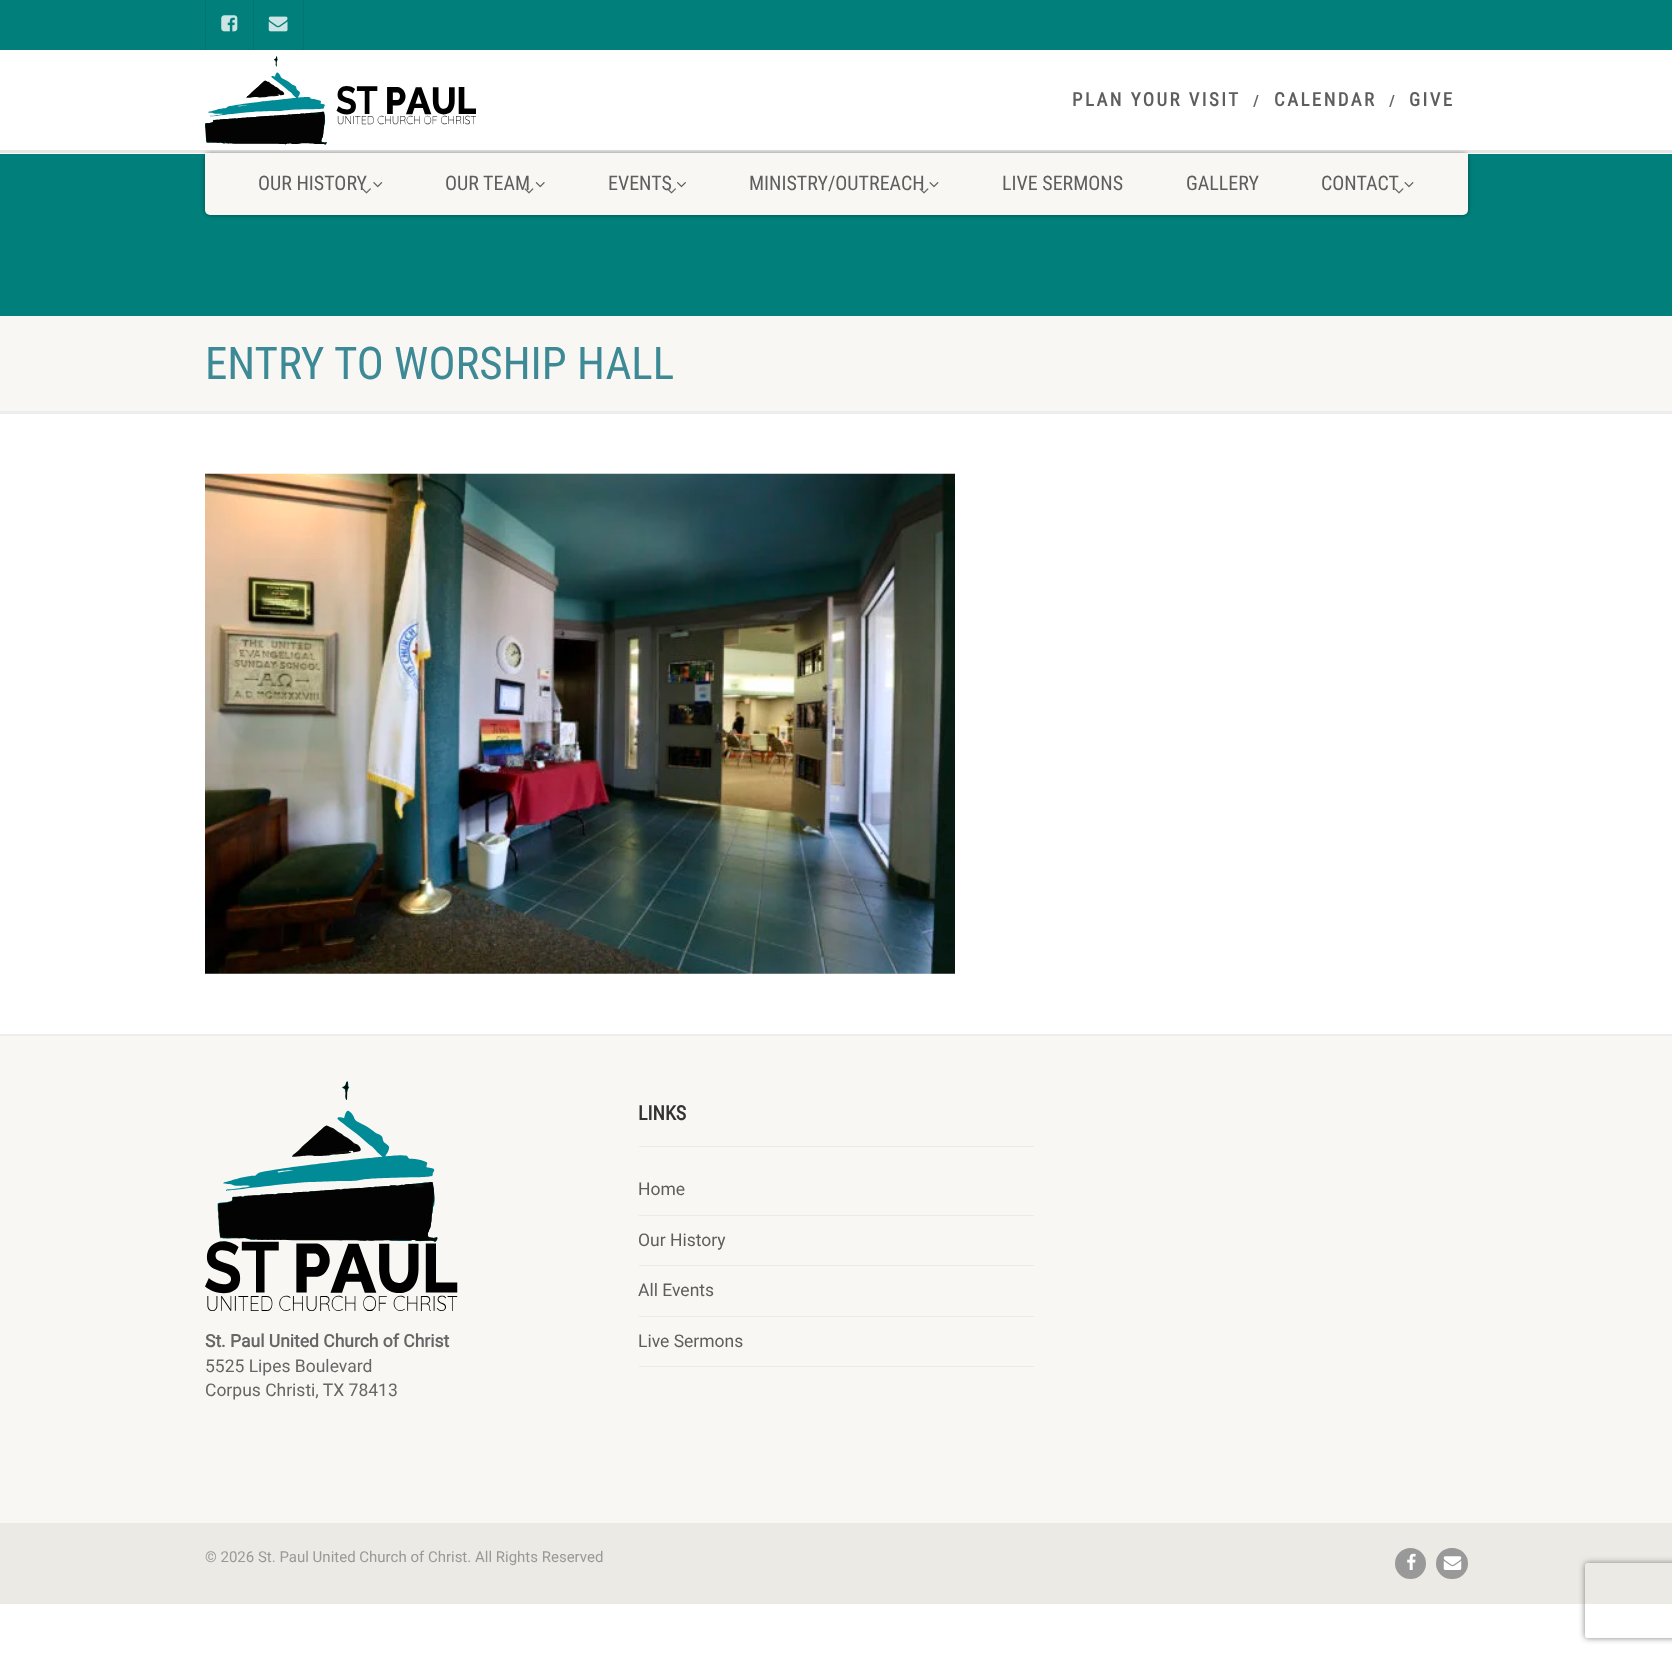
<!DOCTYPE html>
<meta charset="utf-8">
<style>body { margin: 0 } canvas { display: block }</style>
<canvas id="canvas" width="1672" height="1655"></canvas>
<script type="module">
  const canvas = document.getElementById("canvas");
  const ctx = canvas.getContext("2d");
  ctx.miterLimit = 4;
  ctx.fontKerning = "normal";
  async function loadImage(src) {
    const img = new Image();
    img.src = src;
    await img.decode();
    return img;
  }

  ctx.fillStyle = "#ffffff";
  ctx.fillRect(0, 0, 1672, 1655);
  ctx.fillStyle = "#007f7b";
  ctx.fillRect(0, 0, 1672, 50);
  ctx.fillStyle = "#007571";
  ctx.fillRect(253, 0, 1, 50);
  ctx.fillRect(205, 0, 1, 50);
  ctx.drawImage(await loadImage("img1.png"), 221, 15, 17, 17);
  ctx.fillRect(303, 0, 1, 50);
  ctx.drawImage(await loadImage("img2.png"), 268, 16, 20, 16);
  ctx.fillStyle = "#007f7b";
  ctx.fillRect(0, 154, 1672, 162);
  ctx.fillStyle = "rgba(0, 0, 0, 0.4)";
  ctx.filter = "blur(2px)";
  ctx.beginPath();
  ctx.roundRect(205, 153, 1263, 62, 5);
  ctx.fill();
  ctx.filter = "none";
  ctx.fillStyle = "rgba(0, 0, 0, 0.1)";
  ctx.beginPath();
  ctx.moveTo(0, 150);
  ctx.lineTo(0, 153);
  ctx.lineTo(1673, 153);
  ctx.lineTo(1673, 53);
  ctx.lineTo(1672, 53);
  ctx.lineTo(1672, 150);
  ctx.closePath();
  ctx.fill();
  ctx.fillStyle = "rgba(255, 255, 255, 0.8)";
  ctx.fillRect(209, 149, 1255, 1);
  ctx.drawImage(await loadImage("img3.png"), 205, 56, 271, 89);
  ctx.letterSpacing = "2.5px";
  ctx.font = "bold 18.75px Roboto Condensed";
  ctx.fillStyle = "#5e5e5e";
  ctx.fillText("PLAN YOUR VISIT", 1072, 106);
  ctx.font = "bold 15px Roboto Condensed";
  ctx.fillStyle = "#666666";
  ctx.fillText("/", 1253, 106);
  ctx.font = "bold 18.75px Roboto Condensed";
  ctx.fillStyle = "#5e5e5e";
  ctx.fillText("CALENDAR", 1274, 106);
  ctx.font = "bold 15px Roboto Condensed";
  ctx.fillStyle = "#666666";
  ctx.fillText("/", 1389, 106);
  ctx.font = "bold 18.75px Roboto Condensed";
  ctx.fillStyle = "#5e5e5e";
  ctx.fillText("GIVE", 1409, 106);
  ctx.fillStyle = "#f8f7f3";
  ctx.beginPath();
  ctx.roundRect(205, 153, 1263, 62, [0, 0, 5, 5]);
  ctx.fill();
  ctx.letterSpacing = "0px";
  ctx.font = "20px Roboto Condensed";
  ctx.fillStyle = "#5e5e5e";
  ctx.fillText("OUR HISTORY", 258, 190);
  ctx.drawImage(await loadImage("img4.png"), 373, 182, 10, 6);
  ctx.drawImage(await loadImage("img5.png"), 362, 188, 9, 6);
  ctx.fillText("OUR TEAM", 445, 190);
  ctx.drawImage(await loadImage("img6.png"), 535, 182, 10, 6);
  ctx.drawImage(await loadImage("img7.png"), 524, 188, 10, 6);
  ctx.fillText("EVENTS", 608, 190);
  ctx.drawImage(await loadImage("img8.png"), 677, 182, 9, 6);
  ctx.drawImage(await loadImage("img9.png"), 667, 188, 9, 6);
  ctx.fillText("MINISTRY/OUTREACH", 749, 190);
  ctx.drawImage(await loadImage("img10.png"), 929, 182, 10, 6);
  ctx.drawImage(await loadImage("img11.png"), 919, 188, 10, 6);
  ctx.fillText("LIVE SERMONS", 1002, 190);
  ctx.fillText("GALLERY", 1186, 190);
  ctx.fillText("CONTACT", 1321, 190);
  ctx.drawImage(await loadImage("img10.png"), 1404, 182, 10, 6);
  ctx.drawImage(await loadImage("img12.png"), 1395, 188, 9, 6);
  ctx.fillStyle = "#ededed";
  ctx.beginPath();
  ctx.moveTo(0, 411);
  ctx.lineTo(0, 414);
  ctx.lineTo(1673, 414);
  ctx.lineTo(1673, 319);
  ctx.lineTo(1672, 319);
  ctx.lineTo(1672, 411);
  ctx.closePath();
  ctx.fill();
  ctx.fillStyle = "#f8f7f3";
  ctx.fillRect(0, 316, 1672, 95);
  ctx.font = "45px Roboto Condensed";
  ctx.fillStyle = "#3d8995";
  ctx.fillText("ENTRY TO WORSHIP HALL", 205, 379);
  ctx.drawImage(await loadImage("img13.png"), 205, 473, 750, 501);
  ctx.fillStyle = "#ededed";
  ctx.beginPath();
  ctx.moveTo(0, 1034);
  ctx.lineTo(0, 1036);
  ctx.lineTo(1672, 1036);
  ctx.lineTo(1672, 1520);
  ctx.lineTo(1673, 1520);
  ctx.lineTo(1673, 1034);
  ctx.closePath();
  ctx.fill();
  ctx.fillStyle = "#f8f7f3";
  ctx.fillRect(0, 1036, 1672, 487);
  ctx.font = "bold 20px Roboto Condensed";
  ctx.fillStyle = "#333333";
  ctx.fillText("LINKS", 638, 1120);
  ctx.fillStyle = "#eceae4";
  ctx.fillRect(639, 1146, 395, 1);
  ctx.fillRect(639, 1215, 395, 1);
  ctx.font = "17.5px Roboto";
  ctx.fillStyle = "#5e5e5e";
  ctx.fillText("Home", 638, 1195);
  ctx.fillStyle = "#eceae4";
  ctx.fillRect(639, 1265, 395, 1);
  ctx.fillStyle = "#5e5e5e";
  ctx.fillText("Our History", 638, 1246);
  ctx.fillStyle = "#eceae4";
  ctx.fillRect(639, 1316, 395, 1);
  ctx.fillStyle = "#5e5e5e";
  ctx.fillText("All Events", 638, 1296);
  ctx.fillStyle = "#eceae4";
  ctx.fillRect(639, 1366, 395, 1);
  ctx.fillStyle = "#5e5e5e";
  ctx.fillText("Live Sermons", 638, 1347);
  ctx.drawImage(await loadImage("img14.png"), 205, 1081, 253, 230);
  ctx.font = "bold 17.5px Roboto";
  ctx.fillStyle = "#666666";
  ctx.fillText("St. Paul United Church of Christ", 205, 1347);
  ctx.font = "17.5px Roboto";
  ctx.fillText("5525 Lipes Boulevard", 205, 1372);
  ctx.fillText("Corpus Christi, TX 78413", 205, 1396);
  ctx.fillStyle = "#eceae4";
  ctx.fillRect(0, 1523, 1672, 81);
  ctx.font = "15px Roboto";
  ctx.fillStyle = "#999999";
  ctx.fillText("© 2026 St. Paul United Church of Christ. All Rights Reserved", 205, 1562);
  ctx.beginPath();
  ctx.arc(1410.5, 1563.5, 15.5, 0, Math.PI * 2);
  ctx.fill();
  ctx.drawImage(await loadImage("img15.png"), 1407, 1553, 9, 17);
  ctx.beginPath();
  ctx.roundRect(1436, 1548, 32, 31, 15.5);
  ctx.fill();
  ctx.drawImage(await loadImage("img16.png"), 1443, 1556, 19, 14);
  ctx.save();
  ctx.beginPath();
  ctx.moveTo(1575, 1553);
  ctx.lineTo(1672, 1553);
  ctx.lineTo(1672, 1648);
  ctx.lineTo(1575, 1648);
  ctx.closePath();
  ctx.moveTo(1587.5, 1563);
  ctx.lineTo(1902.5, 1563);
  ctx.bezierCurveTo(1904, 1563, 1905, 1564, 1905, 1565.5);
  ctx.lineTo(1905, 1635.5);
  ctx.bezierCurveTo(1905, 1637, 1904, 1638, 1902.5, 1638);
  ctx.lineTo(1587.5, 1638);
  ctx.bezierCurveTo(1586, 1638, 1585, 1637, 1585, 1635.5);
  ctx.lineTo(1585, 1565.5);
  ctx.bezierCurveTo(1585, 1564, 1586, 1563, 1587.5, 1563);
  ctx.closePath();
  ctx.clip("evenodd");
  ctx.fillStyle = "#808080";
  ctx.filter = "blur(3px)";
  ctx.beginPath();
  ctx.roundRect(1585, 1563, 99, 75, 2.5);
  ctx.fill();
  ctx.filter = "none";
  ctx.restore();
</script>
